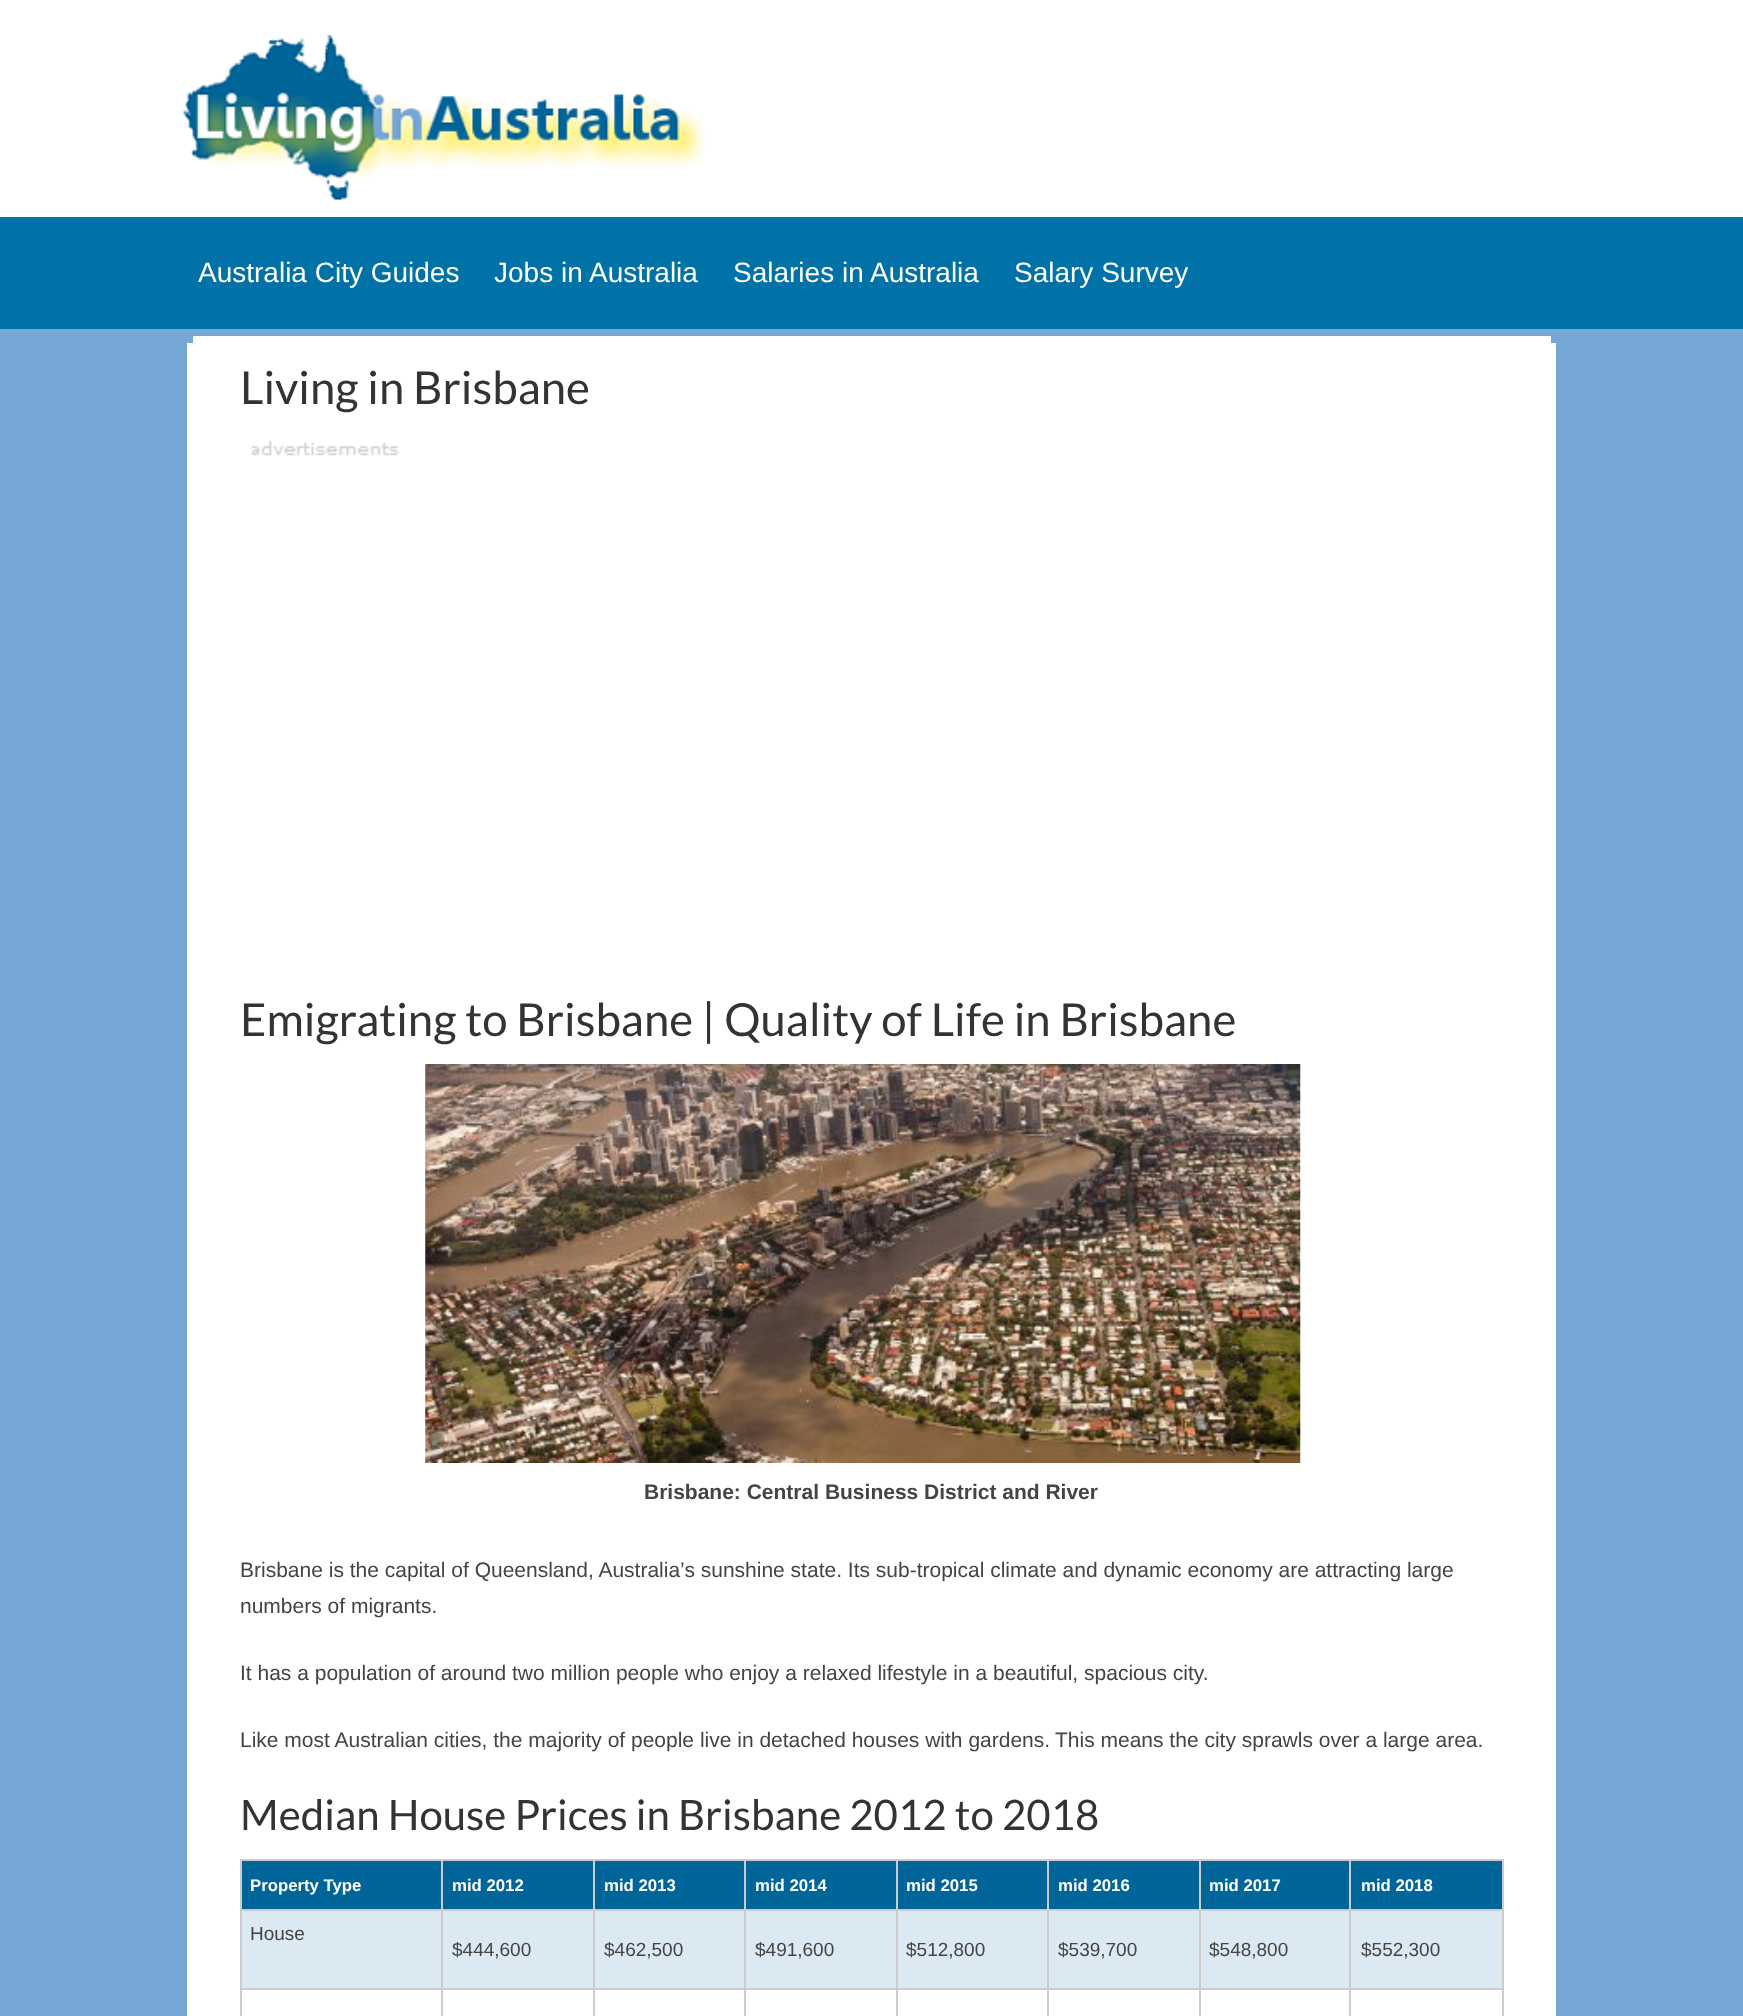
<!DOCTYPE html>
<meta charset="utf-8">
<style>body { margin: 0 } canvas { display: block }</style>
<canvas id="canvas" width="1743" height="2016"></canvas>
<script type="module">
  const canvas = document.getElementById("canvas");
  const ctx = canvas.getContext("2d");
  ctx.miterLimit = 4;
  ctx.fontKerning = "normal";
  async function loadImage(src) {
    const img = new Image();
    img.src = src;
    await img.decode();
    return img;
  }

  ctx.fillStyle = "#77a7d6";
  ctx.fillRect(0, 0, 1743, 2016);
  ctx.fillStyle = "#ffffff";
  ctx.fillRect(0, 0, 1743, 217);
  ctx.drawImage(await loadImage("img1.png"), 181, 35, 524, 165);
  ctx.fillStyle = "#0072a8";
  ctx.fillRect(0, 217, 1743, 112);
  ctx.font = "28px Liberation Sans";
  ctx.fillStyle = "#ffffff";
  ctx.fillText("Australia City Guides", 198, 282);
  ctx.fillText("Jobs in Australia", 494, 282);
  ctx.fillText("Salaries in Australia", 733, 282);
  ctx.fillText("Salary Survey", 1014, 282);
  ctx.fillRect(193, 336, 1358, 7);
  ctx.fillRect(187, 343, 1369, 1673);
  ctx.font = "45.5px Lato";
  ctx.fillStyle = "#333333";
  ctx.fillText("Living in Brisbane", 240, 404);
  ctx.drawImage(await loadImage("img2.png"), 251, 440, 149, 16);
  ctx.fillText("Emigrating to Brisbane | Quality of Life in Brisbane", 240, 1036);
  ctx.drawImage(await loadImage("img3.png"), 425, 1064, 876, 399);
  ctx.font = "bold 21px Liberation Sans";
  ctx.fillStyle = "#444444";
  ctx.fillText("Brisbane: Central Business District and River", 644, 1499);
  ctx.font = "21px Liberation Sans";
  ctx.fillText("Brisbane is the capital of Queensland, Australia’s sunshine state. Its sub-tropical climate and dynamic economy are attracting large", 240, 1577);
  ctx.fillText("numbers of migrants.", 240, 1613);
  ctx.fillText("It has a population of around two million people who enjoy a relaxed lifestyle in a beautiful, spacious city.", 240, 1680);
  ctx.fillText("Like most Australian cities, the majority of people live in detached houses with gardens.", 240, 1747);
  ctx.fillText("This means the city sprawls over a large area.", 1055, 1747);
  ctx.font = "42px Lato";
  ctx.fillStyle = "#333333";
  ctx.fillText("Median House Prices in Brisbane 2012 to 2018", 240, 1830);
  ctx.fillStyle = "#006699";
  ctx.fillRect(242, 1861, 199, 48);
  ctx.fillStyle = "#cccccc";
  ctx.fillRect(1349, 1859, 154, 2);
  ctx.fillRect(1349, 1909, 154, 2);
  ctx.fillRect(1349, 1988, 154, 2);
  ctx.fillRect(1349, 1988, 2, 28);
  ctx.fillRect(1199, 1988, 152, 2);
  ctx.fillRect(1349, 1909, 2, 81);
  ctx.fillRect(1199, 1909, 152, 2);
  ctx.fillRect(1349, 1859, 2, 52);
  ctx.fillRect(1199, 1859, 152, 2);
  ctx.fillRect(1199, 1988, 2, 28);
  ctx.fillRect(1047, 1988, 154, 2);
  ctx.fillRect(1199, 1909, 2, 81);
  ctx.fillRect(1047, 1909, 154, 2);
  ctx.fillRect(1199, 1859, 2, 52);
  ctx.fillRect(1047, 1859, 154, 2);
  ctx.fillRect(1047, 1988, 2, 28);
  ctx.fillRect(896, 1988, 152, 2);
  ctx.fillRect(1047, 1909, 2, 81);
  ctx.fillRect(896, 1909, 152, 2);
  ctx.fillRect(1047, 1859, 2, 52);
  ctx.fillRect(896, 1859, 152, 2);
  ctx.fillRect(896, 1988, 2, 28);
  ctx.fillRect(744, 1988, 154, 2);
  ctx.fillRect(896, 1909, 2, 81);
  ctx.fillRect(744, 1909, 154, 2);
  ctx.fillRect(896, 1859, 2, 52);
  ctx.fillRect(744, 1859, 154, 2);
  ctx.fillRect(744, 1988, 2, 28);
  ctx.fillRect(593, 1988, 153, 2);
  ctx.fillRect(744, 1909, 2, 81);
  ctx.fillRect(593, 1909, 153, 2);
  ctx.fillRect(744, 1859, 2, 52);
  ctx.fillRect(593, 1859, 153, 2);
  ctx.fillRect(593, 1988, 2, 28);
  ctx.fillRect(441, 1988, 154, 2);
  ctx.fillRect(593, 1909, 2, 81);
  ctx.fillRect(441, 1909, 154, 2);
  ctx.fillRect(593, 1859, 2, 52);
  ctx.fillRect(441, 1859, 154, 2);
  ctx.fillRect(441, 1988, 2, 28);
  ctx.fillRect(240, 1988, 203, 2);
  ctx.fillRect(441, 1909, 2, 81);
  ctx.fillRect(240, 1909, 203, 2);
  ctx.fillRect(441, 1859, 2, 52);
  ctx.fillRect(240, 1859, 203, 2);
  ctx.fillRect(240, 1988, 2, 28);
  ctx.fillRect(240, 1909, 2, 81);
  ctx.fillRect(240, 1859, 2, 52);
  ctx.font = "bold 16.75px Liberation Sans";
  ctx.fillStyle = "#ffffff";
  ctx.fillText("Property Type", 250, 1891);
  ctx.fillStyle = "#006699";
  ctx.fillRect(443, 1861, 150, 48);
  ctx.fillStyle = "#ffffff";
  ctx.fillText("mid 2012", 452, 1891);
  ctx.fillStyle = "#006699";
  ctx.fillRect(595, 1861, 149, 48);
  ctx.fillStyle = "#ffffff";
  ctx.fillText("mid 2013", 604, 1891);
  ctx.fillStyle = "#006699";
  ctx.fillRect(746, 1861, 150, 48);
  ctx.fillStyle = "#ffffff";
  ctx.fillText("mid 2014", 755, 1891);
  ctx.fillStyle = "#006699";
  ctx.fillRect(898, 1861, 149, 48);
  ctx.fillStyle = "#ffffff";
  ctx.fillText("mid 2015", 906, 1891);
  ctx.fillStyle = "#006699";
  ctx.fillRect(1049, 1861, 150, 48);
  ctx.fillStyle = "#ffffff";
  ctx.fillText("mid 2016", 1058, 1891);
  ctx.fillStyle = "#006699";
  ctx.fillRect(1201, 1861, 148, 48);
  ctx.fillStyle = "#ffffff";
  ctx.fillText("mid 2017", 1209, 1891);
  ctx.fillStyle = "#006699";
  ctx.fillRect(1351, 1861, 151, 48);
  ctx.fillStyle = "#cccccc";
  ctx.fillRect(1502, 1988, 2, 28);
  ctx.fillRect(1502, 1909, 2, 81);
  ctx.fillRect(1502, 1859, 2, 52);
  ctx.fillStyle = "#ffffff";
  ctx.fillText("mid 2018", 1361, 1891);
  ctx.fillStyle = "#dae9f2";
  ctx.fillRect(242, 1911, 199, 77);
  ctx.font = "19px Liberation Sans";
  ctx.fillStyle = "#444444";
  ctx.fillText("House", 250, 1940);
  ctx.fillStyle = "#dae9f2";
  ctx.fillRect(443, 1911, 150, 77);
  ctx.fillStyle = "#444444";
  ctx.fillText("$444,600", 452, 1956);
  ctx.fillStyle = "#dae9f2";
  ctx.fillRect(595, 1911, 149, 77);
  ctx.fillStyle = "#444444";
  ctx.fillText("$462,500", 604, 1956);
  ctx.fillStyle = "#dae9f2";
  ctx.fillRect(746, 1911, 150, 77);
  ctx.fillStyle = "#444444";
  ctx.fillText("$491,600", 755, 1956);
  ctx.fillStyle = "#dae9f2";
  ctx.fillRect(898, 1911, 149, 77);
  ctx.fillStyle = "#444444";
  ctx.fillText("$512,800", 906, 1956);
  ctx.fillStyle = "#dae9f2";
  ctx.fillRect(1049, 1911, 150, 77);
  ctx.fillStyle = "#444444";
  ctx.fillText("$539,700", 1058, 1956);
  ctx.fillStyle = "#dae9f2";
  ctx.fillRect(1201, 1911, 148, 77);
  ctx.fillStyle = "#444444";
  ctx.fillText("$548,800", 1209, 1956);
  ctx.fillStyle = "#dae9f2";
  ctx.fillRect(1351, 1911, 151, 77);
  ctx.fillStyle = "#444444";
  ctx.fillText("$552,300", 1361, 1956);
</script>
